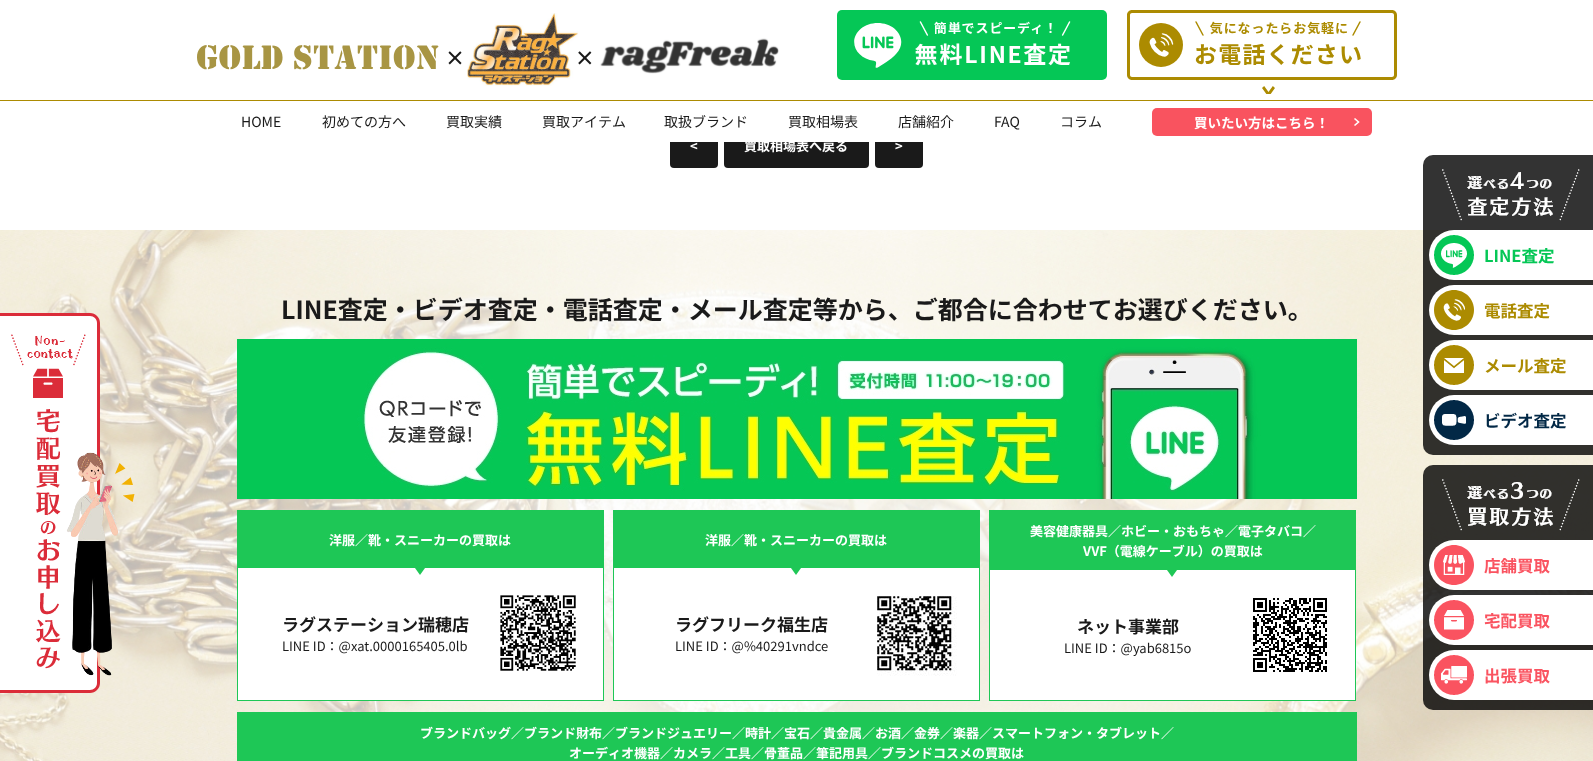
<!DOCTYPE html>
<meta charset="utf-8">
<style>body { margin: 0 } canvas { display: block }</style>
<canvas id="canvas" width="1593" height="761"></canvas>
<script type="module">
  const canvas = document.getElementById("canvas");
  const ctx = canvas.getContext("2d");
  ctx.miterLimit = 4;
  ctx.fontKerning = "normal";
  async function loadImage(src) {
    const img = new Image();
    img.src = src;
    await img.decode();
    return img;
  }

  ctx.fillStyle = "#ffffff";
  ctx.fillRect(0, 0, 1593, 761);
  ctx.fillStyle = "#1a1a1a";
  ctx.beginPath();
  ctx.roundRect(670, 124, 48, 44, 4);
  ctx.fill();
  ctx.beginPath();
  ctx.roundRect(724, 124, 145, 44, 4);
  ctx.fill();
  ctx.beginPath();
  ctx.roundRect(875, 124, 48, 44, 4);
  ctx.fill();
  ctx.fillStyle = "#ffffff";
  ctx.fillRect(670, 124, 253, 18);
  ctx.drawImage(await loadImage("img1.png"), 197, 13, 582, 73);
  ctx.drawImage(await loadImage("img2.png"), 837, 10, 270, 70);
  ctx.drawImage(await loadImage("img3.png"), 1127, 10, 270, 70);
  ctx.drawImage(await loadImage("img4.png"), 1262, 86, 13, 8);
  ctx.fillStyle = "#ac8b01";
  ctx.fillRect(0, 100, 1593, 1);
  ctx.font = "14px Noto Sans JP";
  ctx.fillStyle = "#1a1a1a";
  ctx.fillText("HOME", 241, 127);
  ctx.fillText("初めての方へ", 322, 127);
  ctx.fillText("買取実績", 446, 127);
  ctx.fillText("買取アイテム", 542, 127);
  ctx.fillText("取扱ブランド", 664, 127);
  ctx.fillText("買取相場表", 788, 127);
  ctx.fillText("店舗紹介", 898, 127);
  ctx.fillText("FAQ", 994, 127);
  ctx.fillText("コラム", 1060, 127);
  ctx.fillStyle = "#f9535f";
  ctx.beginPath();
  ctx.roundRect(1152, 108, 220, 28, 5);
  ctx.fill();
  ctx.beginPath();
  ctx.moveTo(1354.5, 125.5);
  ctx.lineTo(1358.5, 122);
  ctx.lineTo(1354.5, 118.5);
  ctx.strokeStyle = "#ffffff";
  ctx.lineWidth = 1.6;
  ctx.stroke();
  ctx.font = "bold 13.5px Noto Sans JP";
  ctx.fillStyle = "#ffffff";
  ctx.fillText("買いたい方はこちら！", 1194, 128);
  ctx.font = "bold 13px Noto Sans JP";
  ctx.fillText("<", 690, 151);
  ctx.fillText("買取相場表へ戻る", 744, 151);
  ctx.fillText(">", 895, 151);
  ctx.drawImage(await loadImage("img6.png"), 0, 230, 1593, 531);
  ctx.drawImage(await loadImage("img5.png"), 0, 313, 135, 380);
  ctx.font = "bold 25px Noto Sans JP";
  ctx.fillStyle = "#1a1a1a";
  ctx.fillText("LINE査定・ビデオ査定・電話査定・メール査定等から、ご都合に合わせてお選びください。", 281, 319);
  ctx.drawImage(await loadImage("img7.png"), 237, 339, 1120, 160);
  ctx.fillStyle = "#ffffff";
  ctx.fillRect(238, 568, 365, 132);
  ctx.strokeStyle = "#1ec756";
  ctx.lineWidth = 1;
  ctx.strokeRect(237.5, 510.5, 366, 190);
  ctx.fillStyle = "#1ec756";
  ctx.fillRect(238, 511, 365, 57);
  ctx.font = "bold 13px Noto Sans JP";
  ctx.fillStyle = "#ffffff";
  ctx.fillText("洋服／靴・スニーカーの買取は", 329, 545);
  ctx.fillStyle = "#1ec756";
  ctx.beginPath();
  ctx.moveTo(415, 568);
  ctx.lineTo(425, 568);
  ctx.lineTo(420, 575);
  ctx.closePath();
  ctx.fill();
  ctx.font = "bold 17px Noto Sans JP";
  ctx.fillStyle = "#1a1a1a";
  ctx.fillText("ラグステーション瑞穂店", 282, 631);
  ctx.font = "13px Noto Sans JP";
  ctx.fillText("LINE ID：@xat.0000165405.0lb", 282, 651);
  ctx.drawImage(await loadImage("img8.png"), 500, 595, 76, 76);
  ctx.fillStyle = "#ffffff";
  ctx.fillRect(614, 568, 365, 132);
  ctx.strokeRect(613.5, 510.5, 366, 190);
  ctx.fillStyle = "#1ec756";
  ctx.fillRect(614, 511, 365, 57);
  ctx.font = "bold 13px Noto Sans JP";
  ctx.fillStyle = "#ffffff";
  ctx.fillText("洋服／靴・スニーカーの買取は", 705, 545);
  ctx.fillStyle = "#1ec756";
  ctx.beginPath();
  ctx.moveTo(791, 568);
  ctx.lineTo(801, 568);
  ctx.lineTo(796, 575);
  ctx.closePath();
  ctx.fill();
  ctx.font = "bold 17px Noto Sans JP";
  ctx.fillStyle = "#1a1a1a";
  ctx.fillText("ラグフリーク福生店", 675, 631);
  ctx.font = "13px Noto Sans JP";
  ctx.fillText("LINE ID：@%40291vndce", 675, 651);
  ctx.drawImage(await loadImage("img9.png"), 877, 596, 80, 80);
  ctx.fillStyle = "#ffffff";
  ctx.fillRect(990, 570, 365, 130);
  ctx.strokeRect(989.5, 510.5, 366, 190);
  ctx.fillStyle = "#1ec756";
  ctx.fillRect(990, 511, 365, 59);
  ctx.font = "bold 13px Noto Sans JP";
  ctx.fillStyle = "#ffffff";
  ctx.fillText("美容健康器具／ホビー・おもちゃ／電子タバコ／", 1030, 536);
  ctx.fillText("VVF（電線ケーブル）の買取は", 1083, 556);
  ctx.fillStyle = "#1ec756";
  ctx.beginPath();
  ctx.moveTo(1167, 570);
  ctx.lineTo(1177, 570);
  ctx.lineTo(1172, 577);
  ctx.closePath();
  ctx.fill();
  ctx.font = "bold 17px Noto Sans JP";
  ctx.fillStyle = "#1a1a1a";
  ctx.fillText("ネット事業部", 1077, 633);
  ctx.font = "13px Noto Sans JP";
  ctx.fillText("LINE ID：@yab6815o", 1064, 653);
  ctx.drawImage(await loadImage("img10.png"), 1253, 598, 74, 74);
  ctx.strokeRect(237.5, 712.5, 1119, 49);
  ctx.fillStyle = "#1ec756";
  ctx.fillRect(238, 713, 1118, 48);
  ctx.font = "bold 13px Noto Sans JP";
  ctx.fillStyle = "#ffffff";
  ctx.fillText("ブランドバッグ／ブランド財布／ブランドジュエリー／時計／宝石／貴金属／お酒／金券／楽器／スマートフォン・タブレット／", 420, 738);
  ctx.fillText("オーディオ機器／カメラ／工具／骨董品／筆記用具／ブランドコスメの買取は", 569, 758);
  ctx.fillStyle = "rgba(0, 0, 0, 0.8)";
  ctx.beginPath();
  ctx.roundRect(1423, 155, 170, 300, [10, 0, 0, 10]);
  ctx.fill();
  ctx.drawImage(await loadImage("img11.png"), 1442, 169, 138, 52);
  ctx.fillStyle = "#ffffff";
  ctx.beginPath();
  ctx.roundRect(1429, 230, 164, 50, [25, 0, 0, 25]);
  ctx.fill();
  ctx.drawImage(await loadImage("img12.png"), 1434, 235, 40, 40);
  ctx.font = "bold 16.5px Noto Sans JP";
  ctx.fillStyle = "#05c756";
  ctx.fillText("LINE査定", 1484, 262);
  ctx.fillStyle = "#ffffff";
  ctx.beginPath();
  ctx.roundRect(1429, 285, 164, 50, [25, 0, 0, 25]);
  ctx.fill();
  ctx.drawImage(await loadImage("img13.png"), 1434, 290, 40, 40);
  ctx.fillStyle = "#ac8b01";
  ctx.fillText("電話査定", 1484, 317);
  ctx.fillStyle = "#ffffff";
  ctx.beginPath();
  ctx.roundRect(1429, 340, 164, 50, [25, 0, 0, 25]);
  ctx.fill();
  ctx.drawImage(await loadImage("img14.png"), 1434, 345, 40, 40);
  ctx.fillStyle = "#ac8b01";
  ctx.fillText("メール査定", 1484, 372);
  ctx.fillStyle = "#ffffff";
  ctx.beginPath();
  ctx.roundRect(1429, 395, 164, 50, [25, 0, 0, 25]);
  ctx.fill();
  ctx.drawImage(await loadImage("img15.png"), 1434, 400, 40, 40);
  ctx.fillStyle = "#022846";
  ctx.fillText("ビデオ査定", 1484, 427);
  ctx.fillStyle = "rgba(0, 0, 0, 0.8)";
  ctx.beginPath();
  ctx.roundRect(1423, 465, 170, 245, [10, 0, 0, 10]);
  ctx.fill();
  ctx.drawImage(await loadImage("img16.png"), 1442, 479, 138, 52);
  ctx.fillStyle = "#ffffff";
  ctx.beginPath();
  ctx.roundRect(1429, 540, 164, 50, [25, 0, 0, 25]);
  ctx.fill();
  ctx.drawImage(await loadImage("img17.png"), 1434, 545, 40, 40);
  ctx.fillStyle = "#fa5360";
  ctx.fillText("店舗買取", 1484, 572);
  ctx.fillStyle = "#ffffff";
  ctx.beginPath();
  ctx.roundRect(1429, 595, 164, 50, [25, 0, 0, 25]);
  ctx.fill();
  ctx.drawImage(await loadImage("img18.png"), 1434, 600, 40, 40);
  ctx.fillStyle = "#fa5360";
  ctx.fillText("宅配買取", 1484, 627);
  ctx.fillStyle = "#ffffff";
  ctx.beginPath();
  ctx.roundRect(1429, 650, 164, 50, [25, 0, 0, 25]);
  ctx.fill();
  ctx.drawImage(await loadImage("img19.png"), 1434, 655, 40, 40);
  ctx.fillStyle = "#fa5360";
  ctx.fillText("出張買取", 1484, 682);
</script>
